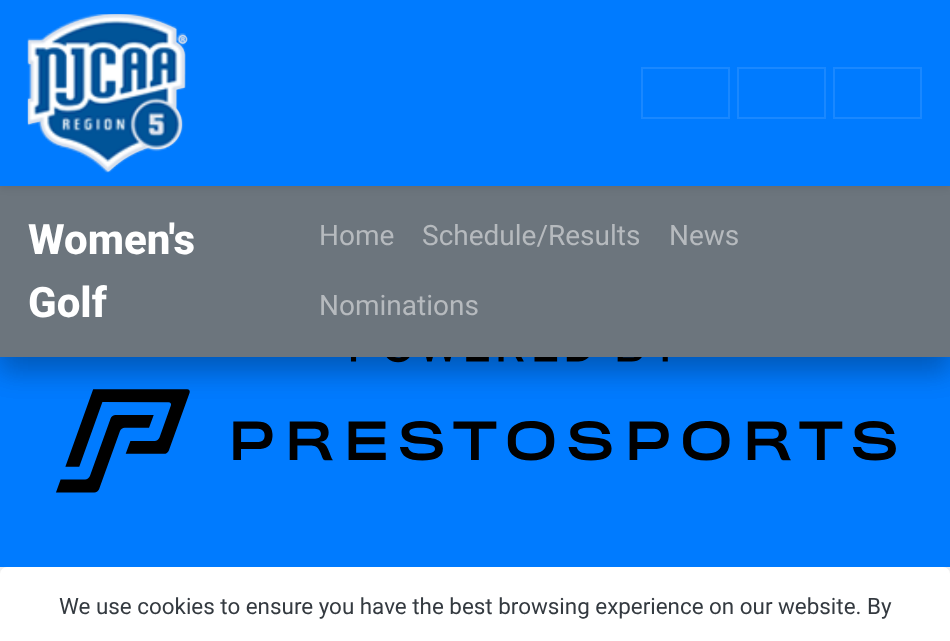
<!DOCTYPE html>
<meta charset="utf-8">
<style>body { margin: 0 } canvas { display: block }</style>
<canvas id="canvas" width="950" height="641"></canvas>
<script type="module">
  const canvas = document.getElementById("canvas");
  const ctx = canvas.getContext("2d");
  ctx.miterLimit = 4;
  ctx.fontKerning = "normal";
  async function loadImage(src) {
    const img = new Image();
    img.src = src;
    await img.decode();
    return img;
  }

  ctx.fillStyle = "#ffffff";
  ctx.fillRect(0, 0, 950, 641);
  ctx.fillStyle = "rgba(0, 0, 0, 0.15)";
  ctx.filter = "blur(14px)";
  ctx.beginPath();
  ctx.rect(0, -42, 950, 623);
  ctx.fill();
  ctx.filter = "none";
  ctx.fillStyle = "#007bff";
  ctx.fillRect(0, 357, 950, 210);
  ctx.drawImage(await loadImage("img1.png"), 56, 357, 840, 136);
  ctx.fillStyle = "rgba(0, 0, 0, 0.15)";
  ctx.filter = "blur(14px)";
  ctx.beginPath();
  ctx.rect(0, 14, 950, 357);
  ctx.fill();
  ctx.filter = "none";
  ctx.filter = "blur(14px)";
  ctx.beginPath();
  ctx.rect(0, 200, 950, 171);
  ctx.fill();
  ctx.filter = "none";
  ctx.fillStyle = "#6c757d";
  ctx.fillRect(0, 186, 950, 171);
  ctx.fillStyle = "rgba(0, 0, 0, 0.07)";
  ctx.filter = "blur(3.5px)";
  ctx.beginPath();
  ctx.rect(0, 4, 950, 185);
  ctx.fill();
  ctx.filter = "none";
  ctx.fillStyle = "#007bff";
  ctx.fillRect(0, 0, 950, 186);
  ctx.drawImage(await loadImage("img3.png"), 28, 14, 160, 158);
  ctx.drawImage(await loadImage("img2.png"), 27, 14, 159, 159);
  ctx.strokeStyle = "#1a88ff";
  ctx.lineWidth = 2;
  ctx.strokeRect(642, 68, 87, 50);
  ctx.strokeRect(738, 68, 87, 50);
  ctx.strokeRect(834, 68, 87, 50);
  ctx.font = "800 42px Roboto";
  ctx.fillStyle = "#ffffff";
  ctx.fillText("Women's", 28, 254);
  ctx.fillText("Golf", 28, 317);
  ctx.font = "28px Roboto";
  ctx.fillStyle = "#b6babe";
  ctx.fillText("Home", 319, 245);
  ctx.fillText("Schedule/Results", 422, 245);
  ctx.fillText("News", 669, 245);
  ctx.fillText("Nominations", 319, 315);
  ctx.fillStyle = "#ffffff";
  ctx.beginPath();
  ctx.roundRect(0, 567, 950, 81, 7);
  ctx.fill();
  ctx.font = "22.4px Roboto";
  ctx.fillStyle = "#343a40";
  ctx.fillText("We use cookies to ensure you have the best browsing experience on our website. By", 59, 614);
</script>
